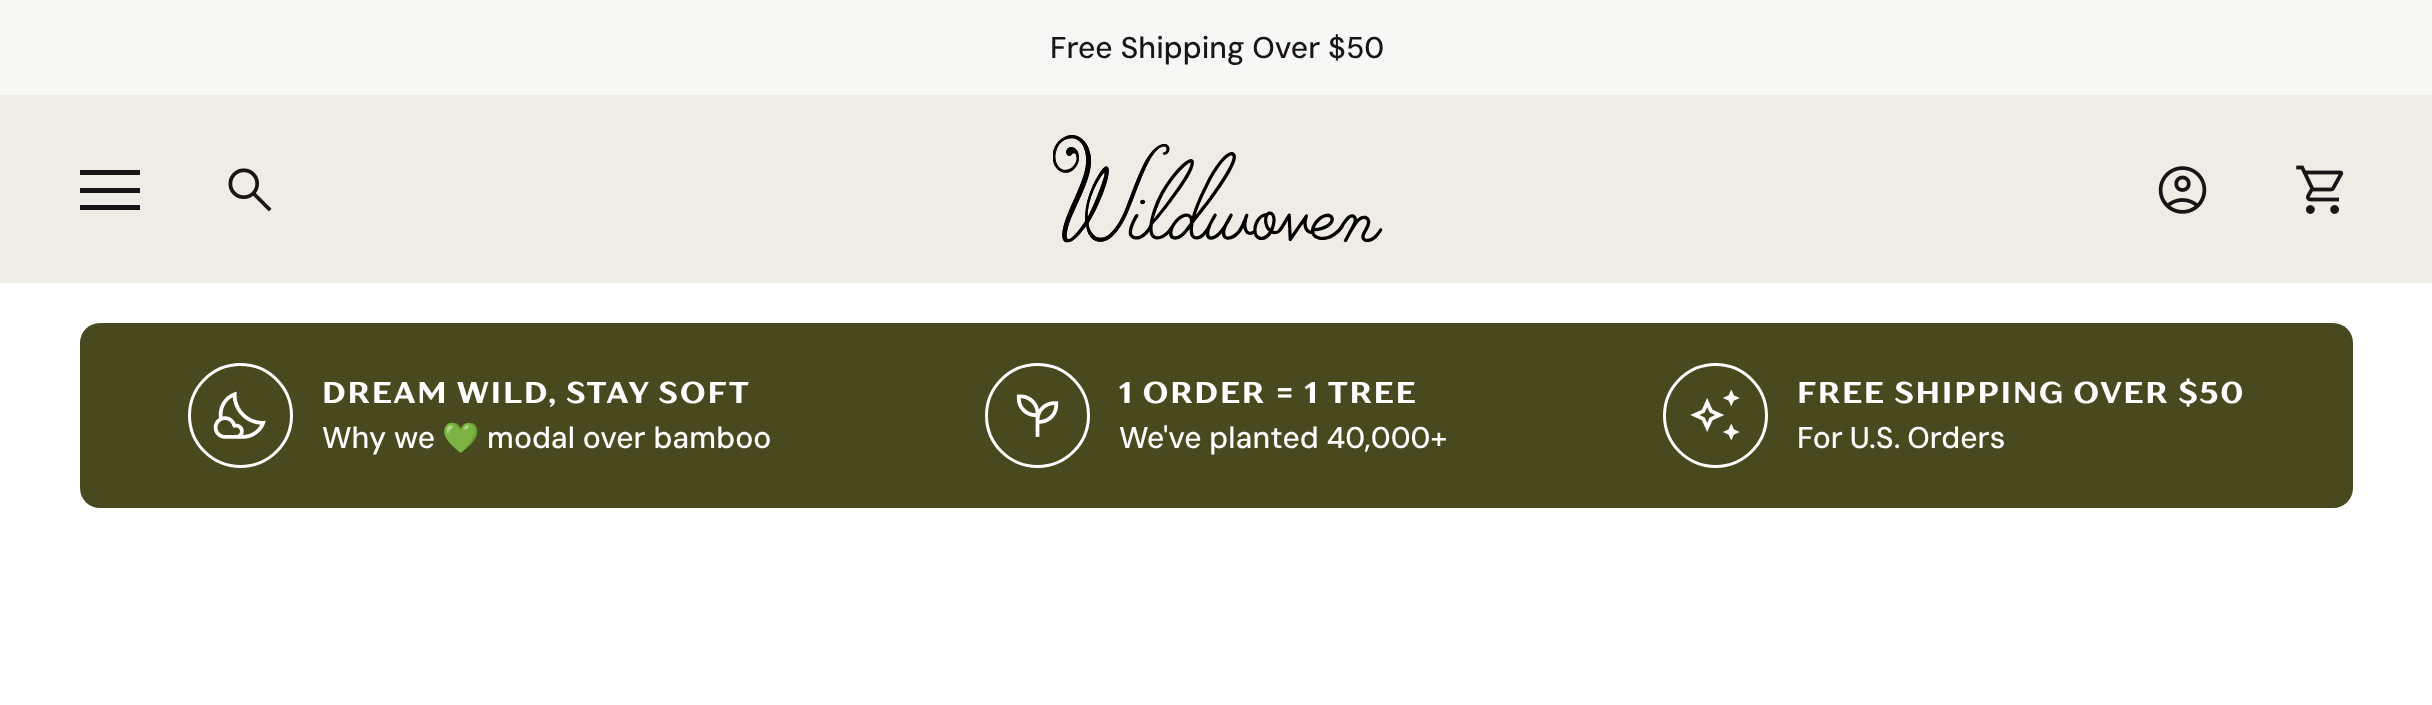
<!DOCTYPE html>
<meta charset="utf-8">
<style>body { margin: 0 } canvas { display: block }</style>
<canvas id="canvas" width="2432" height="705"></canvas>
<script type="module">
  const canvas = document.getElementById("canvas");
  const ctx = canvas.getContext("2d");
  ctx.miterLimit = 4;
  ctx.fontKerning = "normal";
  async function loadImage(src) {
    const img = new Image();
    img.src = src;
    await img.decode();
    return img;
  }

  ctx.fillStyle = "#ffffff";
  ctx.fillRect(0, 0, 2432, 705);
  ctx.fillStyle = "#f7f7f6";
  ctx.fillRect(0, 0, 2432, 95);
  ctx.font = "500 30px DM Sans";
  ctx.fillStyle = "#191415";
  ctx.fillText("Free Shipping Over $50", 1050, 58);
  ctx.fillStyle = "#efece5";
  ctx.fillRect(0, 95, 2432, 188);
  ctx.fillStyle = "#191415";
  ctx.fillRect(80, 170, 60, 5);
  ctx.fillRect(80, 188, 60, 5);
  ctx.fillRect(80, 205, 60, 5);
  ctx.drawImage(await loadImage("img1.png"), 228, 168, 44, 44);
  ctx.drawImage(await loadImage("img2.png"), 1053, 135, 330, 108);
  ctx.drawImage(await loadImage("img3.png"), 2158, 166, 49, 48);
  ctx.drawImage(await loadImage("img4.png"), 2296, 165, 48, 49);
  ctx.fillStyle = "#48491e";
  ctx.beginPath();
  ctx.roundRect(80, 323, 2273, 185, 20);
  ctx.fill();
  ctx.beginPath();
  ctx.arc(240.5, 415.5, 51, 0, Math.PI * 2);
  ctx.strokeStyle = "#ffffff";
  ctx.lineWidth = 3;
  ctx.stroke();
  ctx.drawImage(await loadImage("img5.png"), 213, 391, 53, 48);
  ctx.letterSpacing = "1.8px";
  ctx.font = "bold 30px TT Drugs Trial";
  ctx.fillStyle = "#ffffff";
  ctx.fillText("DREAM WILD, STAY SOFT", 322, 403);
  ctx.letterSpacing = "0px";
  ctx.font = "500 30px DM Sans";
  ctx.fillText("Why we", 322, 448);
  ctx.font = "30px Noto Color Emoji";
  ctx.fillText("💚", 442, 448);
  ctx.font = "500 30px DM Sans";
  ctx.fillText("modal over bamboo", 487, 448);
  ctx.beginPath();
  ctx.arc(1037.5, 415.5, 51, 0, Math.PI * 2);
  ctx.stroke();
  ctx.drawImage(await loadImage("img6.png"), 1016, 394, 43, 43);
  ctx.letterSpacing = "1.8px";
  ctx.font = "bold 30px TT Drugs Trial";
  ctx.fillText("1 ORDER = 1 TREE", 1119, 403);
  ctx.letterSpacing = "0px";
  ctx.font = "500 30px DM Sans";
  ctx.fillText("We've planted 40,000+", 1119, 448);
  ctx.beginPath();
  ctx.arc(1715.5, 415.5, 51, 0, Math.PI * 2);
  ctx.stroke();
  ctx.drawImage(await loadImage("img7.png"), 1690, 389, 50, 52);
  ctx.letterSpacing = "1.8px";
  ctx.font = "bold 30px TT Drugs Trial";
  ctx.fillText("FREE SHIPPING OVER $50", 1797, 403);
  ctx.letterSpacing = "0px";
  ctx.wordSpacing = "-1px";
  ctx.font = "500 30px DM Sans";
  ctx.fillText("For U.S. Orders", 1797, 448);
</script>
